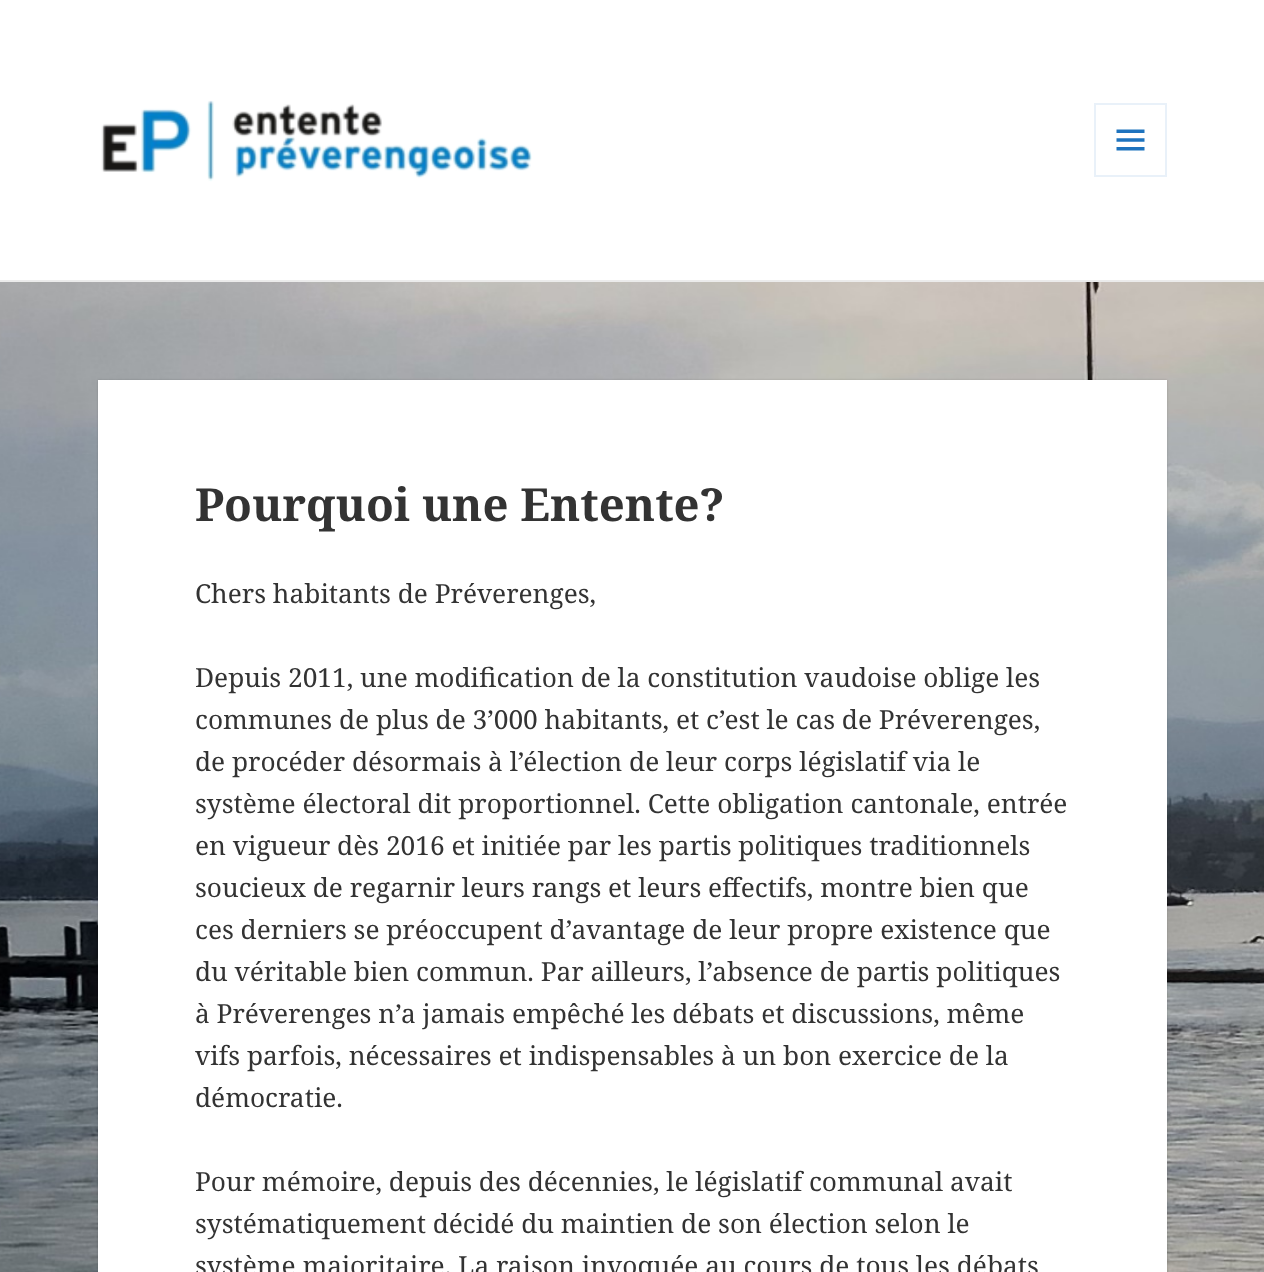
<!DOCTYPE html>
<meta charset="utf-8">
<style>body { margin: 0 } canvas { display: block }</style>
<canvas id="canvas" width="1264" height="1272"></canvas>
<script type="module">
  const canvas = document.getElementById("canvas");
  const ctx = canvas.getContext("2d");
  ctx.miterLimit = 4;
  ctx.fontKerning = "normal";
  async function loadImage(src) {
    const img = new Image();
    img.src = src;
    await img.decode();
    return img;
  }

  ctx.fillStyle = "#ffffff";
  ctx.fillRect(0, 0, 1264, 1272);
  ctx.drawImage(await loadImage("img1.png"), 0, 282, 1264, 990);
  ctx.fillStyle = "#ebebeb";
  ctx.fillRect(0, 280, 1264, 2);
  ctx.drawImage(await loadImage("img2.png"), 101, 100, 431, 82);
  ctx.strokeStyle = "#e9f1f9";
  ctx.lineWidth = 2;
  ctx.strokeRect(1095, 104, 71, 72);
  ctx.drawImage(await loadImage("img3.png"), 1116, 129, 29, 22);
  ctx.fillStyle = "rgba(0, 0, 0, 0.15)";
  ctx.filter = "blur(1px)";
  ctx.beginPath();
  ctx.rect(98, 380, 1069, 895);
  ctx.fill();
  ctx.filter = "none";
  ctx.fillStyle = "#ffffff";
  ctx.fillRect(98, 380, 1069, 892);
  ctx.font = "bold 45.5px Noto Serif";
  ctx.fillStyle = "#333333";
  ctx.fillText("Pourquoi une Entente?", 195, 521);
  ctx.font = "26.25px Noto Serif";
  ctx.fillText("Chers habitants de Préverenges,", 195, 603);
  ctx.fillText("Depuis 2011, une modification de la constitution vaudoise oblige les", 195, 687);
  ctx.fillText("communes de plus de 3’000 habitants, et c’est le cas de Préverenges,", 195, 729);
  ctx.fillText("de procéder désormais à l’élection de leur corps législatif via le", 195, 771);
  ctx.fillText("système électoral dit proportionnel. Cette obligation cantonale, entrée", 195, 813);
  ctx.fillText("en vigueur dès 2016 et initiée par les partis politiques traditionnels", 195, 855);
  ctx.fillText("soucieux de regarnir leurs rangs et leurs effectifs, montre bien que", 195, 897);
  ctx.fillText("ces derniers se préoccupent d’avantage de leur propre existence que", 195, 939);
  ctx.fillText("du véritable bien commun. Par ailleurs, l’absence de partis politiques", 195, 981);
  ctx.fillText("à Préverenges n’a jamais empêché les débats et discussions, même", 195, 1023);
  ctx.fillText("vifs parfois, nécessaires et indispensables à un bon exercice de la", 195, 1065);
  ctx.fillText("démocratie.", 195, 1107);
  ctx.fillText("Pour mémoire, depuis des décennies, le législatif communal avait", 195, 1191);
  ctx.fillText("systématiquement décidé du maintien de son élection selon le", 195, 1233);
  ctx.fillText("système majoritaire. La raison invoquée au cours de tous les débats", 195, 1275);
</script>
